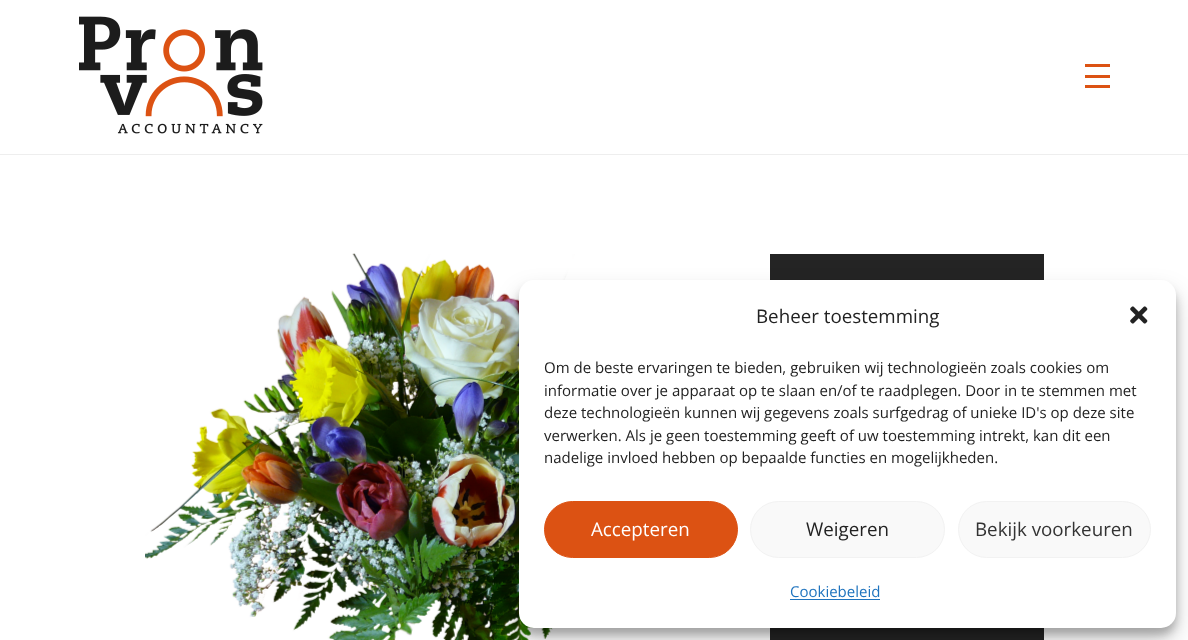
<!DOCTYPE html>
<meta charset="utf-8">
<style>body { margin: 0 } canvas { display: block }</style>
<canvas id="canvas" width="1188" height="640"></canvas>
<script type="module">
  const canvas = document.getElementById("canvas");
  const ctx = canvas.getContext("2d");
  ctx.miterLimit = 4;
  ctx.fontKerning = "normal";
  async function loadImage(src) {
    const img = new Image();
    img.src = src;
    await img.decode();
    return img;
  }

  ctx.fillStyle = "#ffffff";
  ctx.fillRect(0, 0, 1188, 640);
  ctx.fillStyle = "#eeeeee";
  ctx.fillRect(0, 154, 1188, 1);
  ctx.drawImage(await loadImage("img1.png"), 79, 16, 184, 118);
  ctx.fillStyle = "#dc5213";
  ctx.fillRect(1085, 64, 25, 3);
  ctx.fillRect(1085, 75, 25, 3);
  ctx.fillRect(1085, 85, 25, 3);
  ctx.drawImage(await loadImage("img2.png"), 145, 253, 588, 387);
  ctx.fillStyle = "#242424";
  ctx.fillRect(770, 254, 274, 386);
  ctx.fillStyle = "rgba(0, 0, 0, 0.23)";
  ctx.filter = "blur(4px)";
  ctx.beginPath();
  ctx.roundRect(519, 288, 657, 347, 15);
  ctx.fill();
  ctx.filter = "none";
  ctx.fillStyle = "rgba(0, 0, 0, 0.19)";
  ctx.filter = "blur(12.5px)";
  ctx.beginPath();
  ctx.roundRect(519, 293, 657, 347, 15);
  ctx.fill();
  ctx.filter = "none";
  ctx.fillStyle = "#ffffff";
  ctx.beginPath();
  ctx.roundRect(519, 280, 657, 348, 15);
  ctx.fill();
  ctx.font = "18.75px Open Sans";
  ctx.fillStyle = "#222222";
  ctx.fillText("Beheer toestemming", 756, 323);
  ctx.drawImage(await loadImage("img3.png"), 1130, 306, 18, 18);
  ctx.font = "15px Open Sans";
  ctx.fillText("Om de beste ervaringen te bieden, gebruiken wij technologieën zoals cookies om", 544, 373);
  ctx.fillText("informatie over je apparaat op te slaan en/of te raadplegen. Door in te stemmen met", 544, 396);
  ctx.fillText("deze technologieën kunnen wij gegevens zoals surfgedrag of unieke ID's op deze site", 544, 418);
  ctx.fillText("verwerken. Als je geen toestemming geeft of uw toestemming intrekt, kan dit een", 544, 441);
  ctx.fillText("nadelige invloed hebben op bepaalde functies en mogelijkheden.", 544, 463);
  ctx.fillStyle = "#dc5213";
  ctx.beginPath();
  ctx.roundRect(544.5, 501.5, 193, 56, 28);
  ctx.fill();
  ctx.strokeStyle = "#dc5213";
  ctx.stroke();
  ctx.font = "18.75px Open Sans";
  ctx.fillStyle = "#ffffff";
  ctx.fillText("Accepteren", 591, 536);
  ctx.fillStyle = "#f9f9f9";
  ctx.beginPath();
  ctx.roundRect(750.5, 501.5, 194, 56, 28);
  ctx.fill();
  ctx.strokeStyle = "#f2f2f2";
  ctx.stroke();
  ctx.fillStyle = "#222222";
  ctx.fillText("Weigeren", 806, 536);
  ctx.fillStyle = "#f9f9f9";
  ctx.beginPath();
  ctx.roundRect(958.5, 501.5, 192, 56, 28);
  ctx.fill();
  ctx.stroke();
  ctx.fillStyle = "#333333";
  ctx.fillText("Bekijk voorkeuren", 975, 536);
  ctx.font = "15px Open Sans";
  ctx.fillStyle = "#1e73be";
  ctx.fillText("Cookiebeleid", 790, 597);
  ctx.fillRect(790, 599, 90, 1);
</script>
